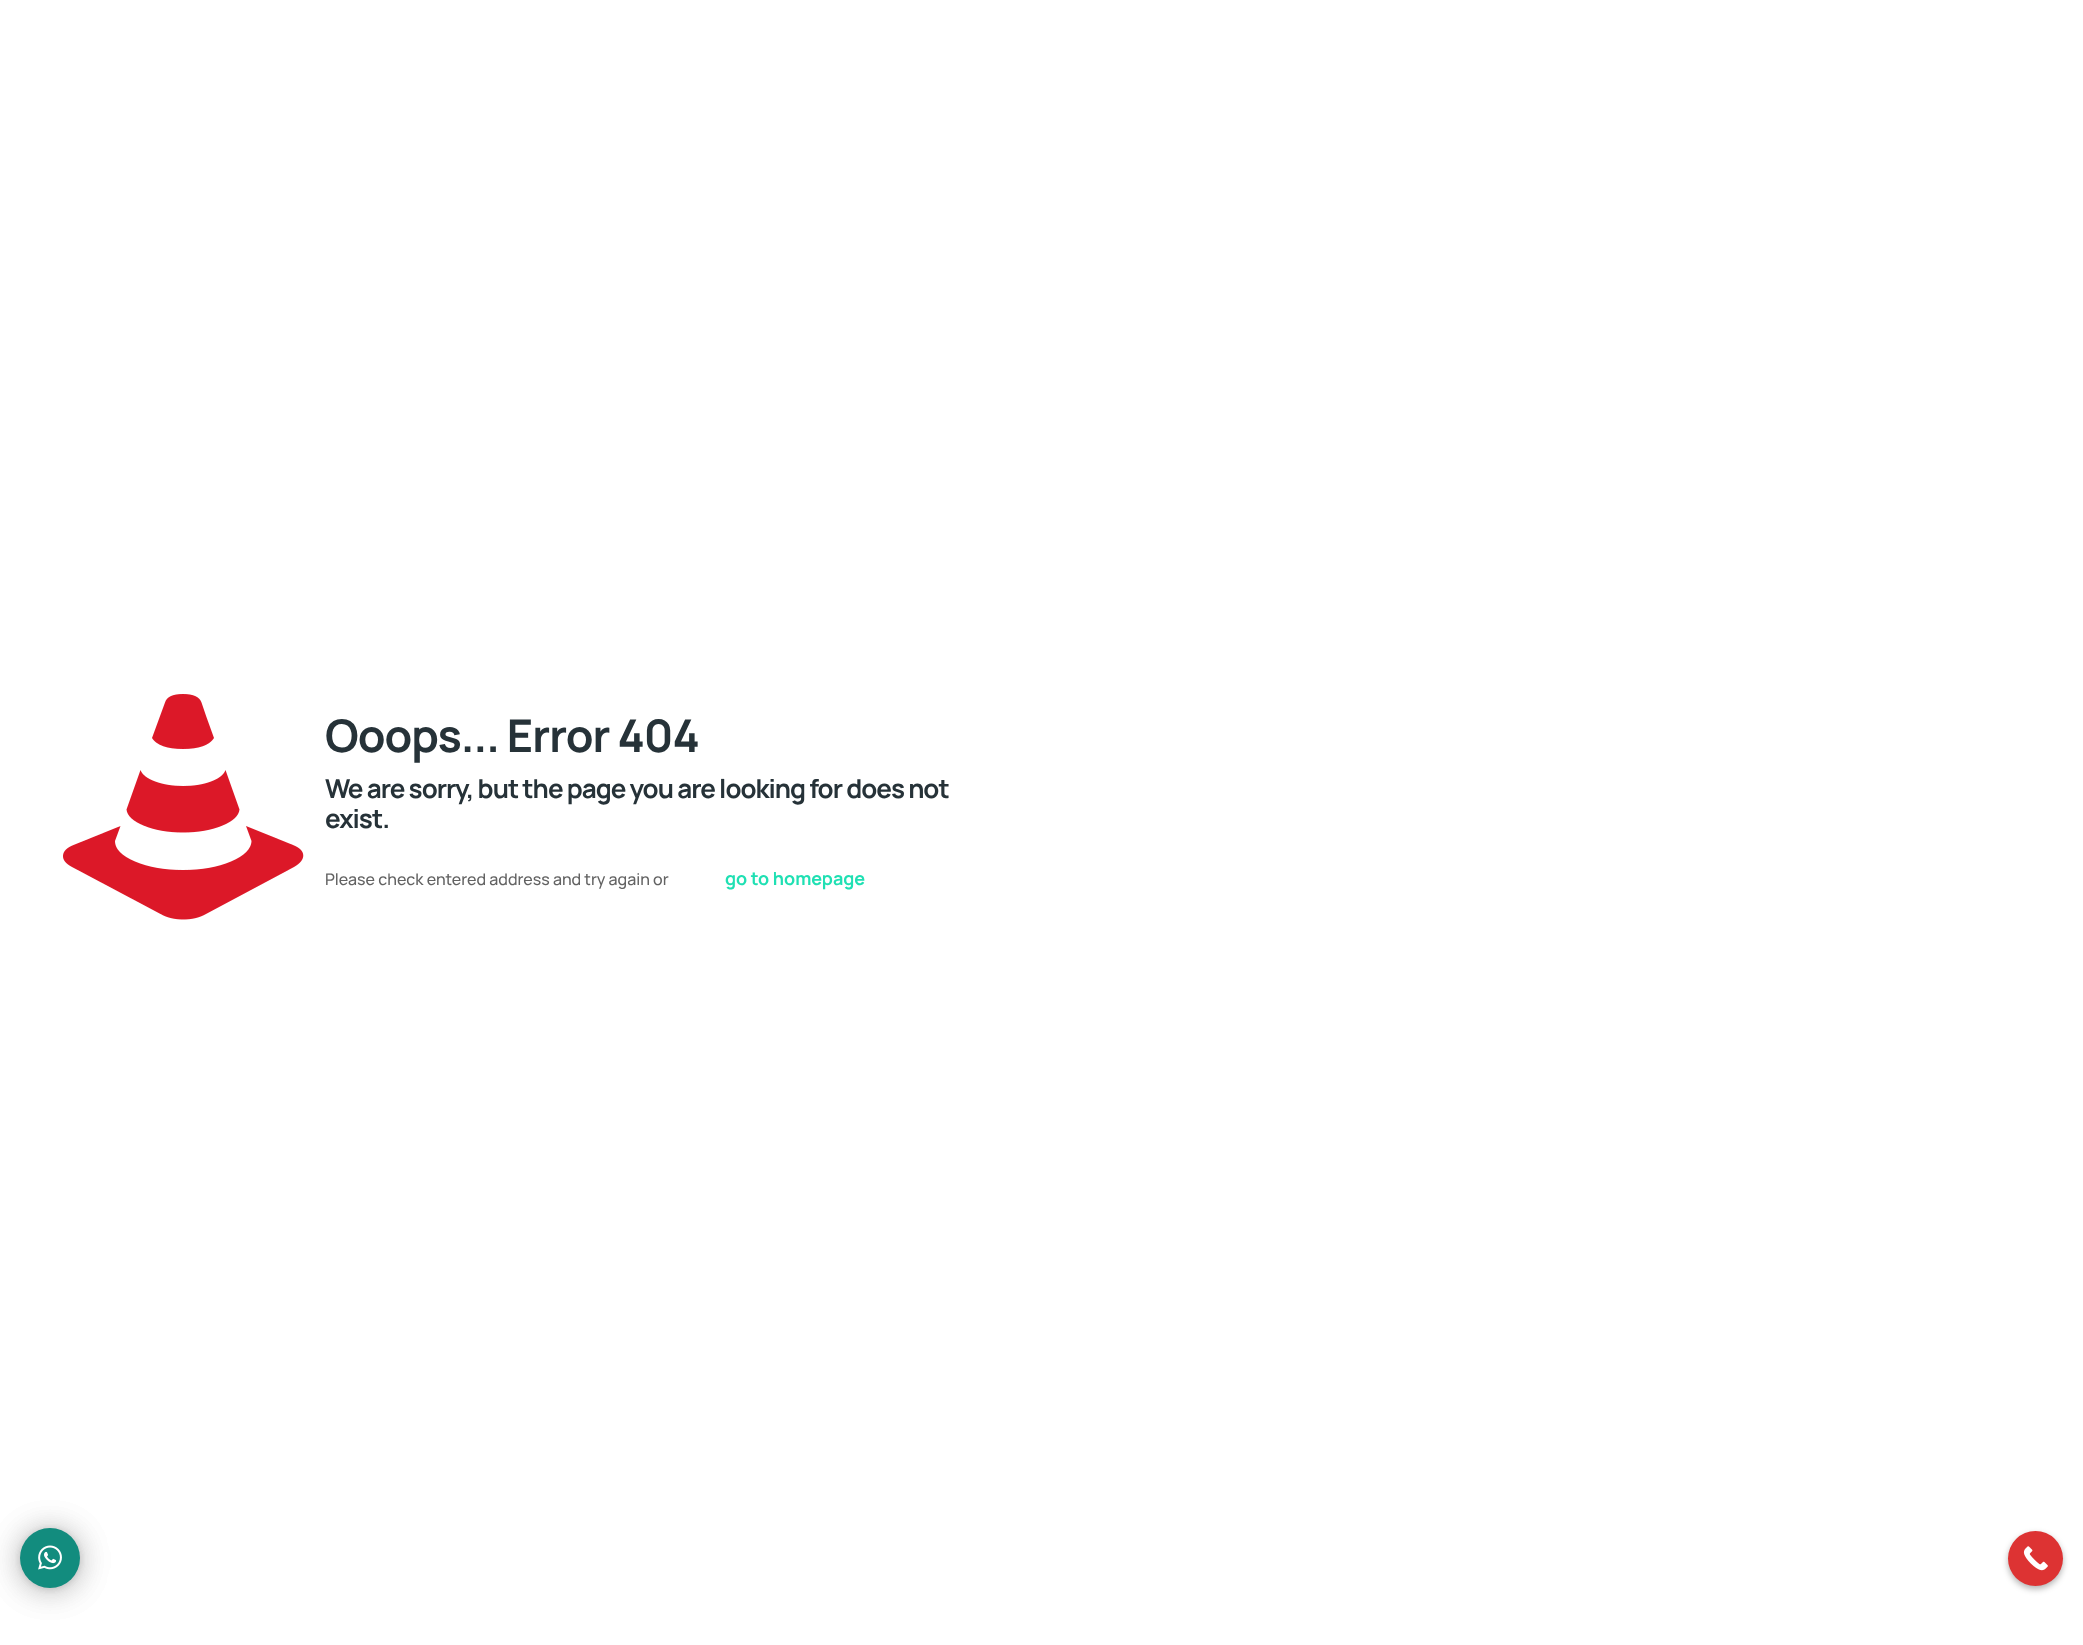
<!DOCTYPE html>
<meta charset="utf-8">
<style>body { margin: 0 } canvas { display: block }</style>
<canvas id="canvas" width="2083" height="1645"></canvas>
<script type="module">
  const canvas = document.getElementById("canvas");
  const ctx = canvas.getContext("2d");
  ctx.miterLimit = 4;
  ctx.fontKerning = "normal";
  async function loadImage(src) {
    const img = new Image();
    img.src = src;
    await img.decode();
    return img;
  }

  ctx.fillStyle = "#ffffff";
  ctx.fillRect(0, 0, 2083, 1645);
  ctx.drawImage(await loadImage("img1.png"), 63, 694, 241, 226);
  ctx.letterSpacing = "-1px";
  ctx.font = "bold 45px Manrope";
  ctx.fillStyle = "#263238";
  ctx.fillText("Ooops... Error 404", 325, 752);
  ctx.font = "bold 26px Manrope";
  ctx.fillText("We are sorry, but the page you are looking for does not", 325, 798);
  ctx.fillText("exist.", 325, 828);
  ctx.letterSpacing = "0px";
  ctx.font = "500 16px Manrope";
  ctx.fillStyle = "#626262";
  ctx.fillText("Please check entered address and try again or", 325, 885);
  ctx.font = "bold 18px Manrope";
  ctx.fillStyle = "#1fe0b3";
  ctx.fillText("go to homepage", 725, 885);
  ctx.fillStyle = "rgba(0, 0, 0, 0.16)";
  ctx.filter = "blur(16px)";
  ctx.beginPath();
  ctx.roundRect(20, 1530, 60, 60, 30);
  ctx.fill();
  ctx.filter = "none";
  ctx.fillStyle = "rgba(0, 0, 0, 0.06)";
  ctx.filter = "blur(3px)";
  ctx.beginPath();
  ctx.roundRect(20, 1529, 60, 60, 30);
  ctx.fill();
  ctx.filter = "none";
  ctx.fillStyle = "rgba(0, 0, 0, 0.16)";
  ctx.filter = "blur(16px)";
  ctx.beginPath();
  ctx.roundRect(20, 1530, 60, 60, 30);
  ctx.fill();
  ctx.filter = "none";
  ctx.fillStyle = "rgba(0, 0, 0, 0.06)";
  ctx.filter = "blur(3px)";
  ctx.beginPath();
  ctx.roundRect(20, 1529, 60, 60, 30);
  ctx.fill();
  ctx.filter = "none";
  ctx.fillStyle = "#128c7e";
  ctx.beginPath();
  ctx.arc(50, 1558, 30, 0, Math.PI * 2);
  ctx.fill();
  ctx.drawImage(await loadImage("img2.png"), 38, 1545, 24, 25);
  ctx.fillStyle = "rgba(0, 0, 0, 0.3)";
  ctx.filter = "blur(3px)";
  ctx.beginPath();
  ctx.roundRect(2008, 1534, 55, 55, 27.5);
  ctx.fill();
  ctx.filter = "none";
  ctx.fillStyle = "#dd3333";
  ctx.beginPath();
  ctx.arc(2035.5, 1558.5, 27.5, 0, Math.PI * 2);
  ctx.fill();
  ctx.drawImage(await loadImage("img3.png"), 2023, 1546, 25, 25);
</script>
